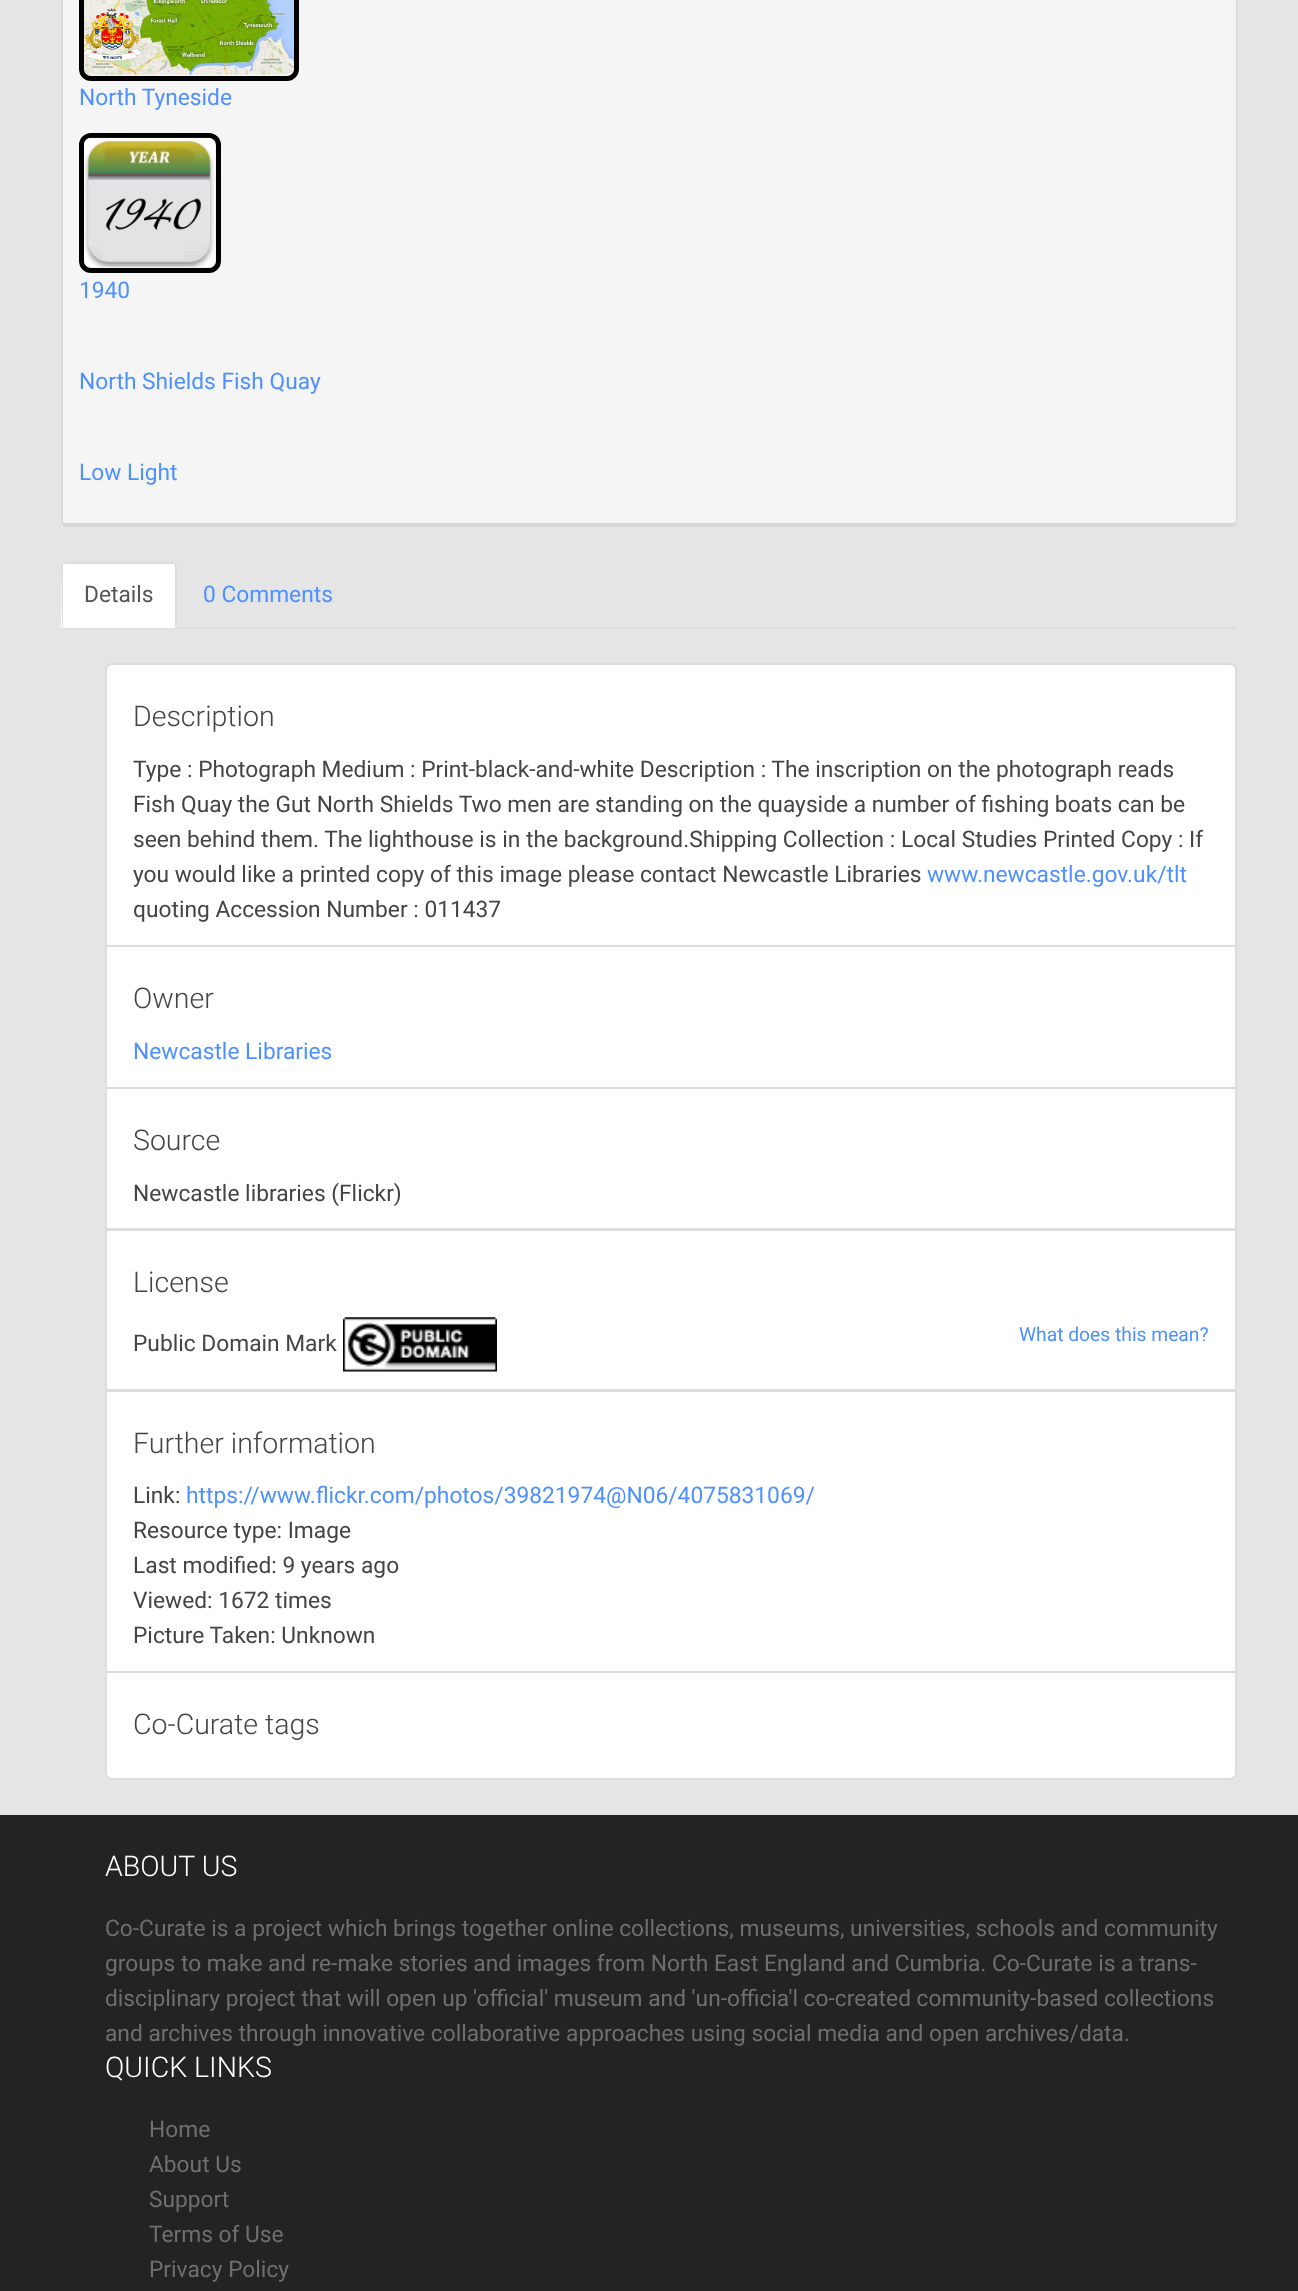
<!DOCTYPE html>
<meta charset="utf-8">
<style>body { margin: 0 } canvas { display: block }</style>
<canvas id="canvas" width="1298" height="2291"></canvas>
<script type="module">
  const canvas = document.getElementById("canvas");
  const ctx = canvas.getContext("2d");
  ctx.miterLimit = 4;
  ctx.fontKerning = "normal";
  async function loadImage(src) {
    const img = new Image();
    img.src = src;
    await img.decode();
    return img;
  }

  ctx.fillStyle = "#e5e5e5";
  ctx.fillRect(0, 0, 1298, 2291);
  ctx.fillStyle = "#f5f5f5";
  ctx.beginPath();
  ctx.moveTo(66, -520);
  ctx.lineTo(1232, -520);
  ctx.bezierCurveTo(1234, -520, 1236, -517, 1236, -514);
  ctx.lineTo(1236, 522);
  ctx.bezierCurveTo(1236, 522, 1234, 523, 1232, 523);
  ctx.lineTo(66, 523);
  ctx.bezierCurveTo(65, 523, 63, 522, 63, 522);
  ctx.lineTo(63, -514);
  ctx.bezierCurveTo(63, -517, 65, -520, 66, -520);
  ctx.closePath();
  ctx.fill();
  ctx.fillStyle = "#d8d8d8";
  ctx.beginPath();
  ctx.moveTo(66, -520);
  ctx.lineTo(1232, -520);
  ctx.bezierCurveTo(1235, -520, 1237, -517, 1237, -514);
  ctx.lineTo(1237, 522);
  ctx.bezierCurveTo(1237, 524, 1235, 527, 1232, 527);
  ctx.lineTo(66, 527);
  ctx.bezierCurveTo(64, 527, 61, 524, 61, 522);
  ctx.lineTo(61, -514);
  ctx.bezierCurveTo(61, -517, 64, -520, 66, -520);
  ctx.closePath();
  ctx.moveTo(66, -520);
  ctx.lineTo(1232, -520);
  ctx.bezierCurveTo(1234, -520, 1236, -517, 1236, -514);
  ctx.lineTo(1236, 522);
  ctx.bezierCurveTo(1236, 522, 1234, 523, 1232, 523);
  ctx.lineTo(66, 523);
  ctx.bezierCurveTo(65, 523, 63, 522, 63, 522);
  ctx.lineTo(63, -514);
  ctx.bezierCurveTo(63, -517, 65, -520, 66, -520);
  ctx.closePath();
  ctx.fill("evenodd");
  ctx.beginPath();
  ctx.roundRect(81.5, -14.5, 215, 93, 9.5);
  ctx.strokeStyle = "#000000";
  ctx.lineWidth = 5;
  ctx.stroke();
  ctx.drawImage(await loadImage("img1.png"), 84, 0, 210, 75);
  ctx.font = "22.75px Roboto";
  ctx.fillStyle = "#4d90fe";
  ctx.fillText("North Tyneside", 79, 105);
  ctx.beginPath();
  ctx.roundRect(81.5, 135.5, 137, 135, 9.5);
  ctx.stroke();
  ctx.drawImage(await loadImage("img2.png"), 84, 137, 131, 130);
  ctx.fillText("1940", 79, 298);
  ctx.fillText("North Shields Fish Quay", 79, 389);
  ctx.fillText("Low Light", 79, 480);
  ctx.fillStyle = "#dddddd";
  ctx.fillRect(61, 627, 1176, 2);
  ctx.fillStyle = "#ffffff";
  ctx.beginPath();
  ctx.roundRect(61, 562, 116, 66, [4, 4, 0, 0]);
  ctx.fill();
  ctx.fillStyle = "#dddddd";
  ctx.beginPath();
  ctx.moveTo(65, 562);
  ctx.lineTo(62, 563);
  ctx.lineTo(64, 564);
  ctx.lineTo(174, 564);
  ctx.lineTo(176, 563);
  ctx.lineTo(173, 562);
  ctx.closePath();
  ctx.fill();
  ctx.beginPath();
  ctx.moveTo(176, 563);
  ctx.lineTo(177, 564);
  ctx.lineTo(177, 628);
  ctx.lineTo(174, 626);
  ctx.lineTo(175, 626);
  ctx.lineTo(175, 565);
  ctx.lineTo(174, 564);
  ctx.closePath();
  ctx.fill();
  ctx.beginPath();
  ctx.moveTo(61, 564);
  ctx.lineTo(62, 563);
  ctx.lineTo(64, 564);
  ctx.lineTo(63, 565);
  ctx.lineTo(63, 626);
  ctx.lineTo(64, 626);
  ctx.lineTo(62, 628);
  ctx.closePath();
  ctx.fill();
  ctx.fillStyle = "#555555";
  ctx.fillText("Details", 84, 602);
  ctx.fillStyle = "#4d90fe";
  ctx.fillText("0 Comments", 203, 602);
  ctx.fillStyle = "#ffffff";
  ctx.beginPath();
  ctx.roundRect(106, 664, 1130, 282, [6, 6, 0, 0]);
  ctx.fill();
  ctx.strokeStyle = "#dddddd";
  ctx.lineWidth = 2;
  ctx.stroke();
  ctx.font = "300 28.5px Roboto";
  ctx.fillStyle = "#444444";
  ctx.fillText("Description", 133, 726);
  ctx.font = "22.75px Roboto";
  ctx.fillText("Type : Photograph Medium : Print-black-and-white Description : The inscription on the photograph reads", 133, 777);
  ctx.fillText("Fish Quay the Gut North Shields Two men are standing on the quayside a number of fishing boats can be", 133, 812);
  ctx.fillText("seen behind them. The lighthouse is in the background.Shipping Collection : Local Studies Printed Copy : If", 133, 847);
  ctx.fillText("you would like a printed copy of this image please contact Newcastle Libraries", 133, 882);
  ctx.fillStyle = "#4d90fe";
  ctx.fillText("www.newcastle.gov.uk/tlt", 927, 882);
  ctx.fillStyle = "#444444";
  ctx.fillText("quoting Accession Number : 011437", 133, 917);
  ctx.fillStyle = "#ffffff";
  ctx.beginPath();
  ctx.rect(106, 946, 1130, 142);
  ctx.fill();
  ctx.stroke();
  ctx.font = "300 28.5px Roboto";
  ctx.fillStyle = "#444444";
  ctx.fillText("Owner", 133, 1008);
  ctx.font = "22.75px Roboto";
  ctx.fillStyle = "#4d90fe";
  ctx.fillText("Newcastle Libraries", 133, 1059);
  ctx.fillStyle = "#ffffff";
  ctx.beginPath();
  ctx.rect(106, 1088, 1130, 141);
  ctx.fill();
  ctx.stroke();
  ctx.font = "300 28.5px Roboto";
  ctx.fillStyle = "#444444";
  ctx.fillText("Source", 133, 1150);
  ctx.font = "22.75px Roboto";
  ctx.fillText("Newcastle libraries (Flickr)", 133, 1201);
  ctx.fillStyle = "#ffffff";
  ctx.beginPath();
  ctx.rect(106, 1230, 1130, 160);
  ctx.fill();
  ctx.stroke();
  ctx.font = "300 28.5px Roboto";
  ctx.fillStyle = "#444444";
  ctx.fillText("License", 133, 1292);
  ctx.font = "22.75px Roboto";
  ctx.fillText("Public Domain Mark", 133, 1351);
  ctx.drawImage(await loadImage("img3.png"), 343, 1317, 154, 55);
  ctx.font = "19.25px Roboto";
  ctx.fillStyle = "#4d90fe";
  ctx.fillText("What does this mean?", 1019, 1341);
  ctx.fillStyle = "#ffffff";
  ctx.beginPath();
  ctx.rect(106, 1391, 1130, 281);
  ctx.fill();
  ctx.stroke();
  ctx.font = "300 28.5px Roboto";
  ctx.fillStyle = "#444444";
  ctx.fillText("Further information", 133, 1453);
  ctx.font = "22.75px Roboto";
  ctx.fillText("Link:", 133, 1503);
  ctx.fillStyle = "#4d90fe";
  ctx.fillText("https://www.flickr.com/photos/39821974@N06/4075831069/", 186, 1503);
  ctx.fillStyle = "#444444";
  ctx.fillText("Resource type: Image", 133, 1538);
  ctx.fillText("Last modified: 9 years ago", 133, 1573);
  ctx.fillText("Viewed: 1672 times", 133, 1608);
  ctx.fillText("Picture Taken: Unknown", 133, 1643);
  ctx.fillStyle = "#ffffff";
  ctx.beginPath();
  ctx.roundRect(106, 1672, 1130, 107, [0, 0, 6, 6]);
  ctx.fill();
  ctx.stroke();
  ctx.font = "300 28.5px Roboto";
  ctx.fillStyle = "#444444";
  ctx.fillText("Co-Curate tags", 133, 1734);
  ctx.fillStyle = "#232323";
  ctx.fillRect(0, 1815, 1298, 476);
  ctx.fillStyle = "#ffffff";
  ctx.fillText("ABOUT US", 105, 1876);
  ctx.font = "22.75px Roboto";
  ctx.fillStyle = "#6f6f6f";
  ctx.fillText("Co-Curate is a project which brings together online collections, museums, universities, schools and community", 105, 1936);
  ctx.fillText("groups to make and re-make stories and images from North East England and Cumbria. Co-Curate is a trans-", 105, 1971);
  ctx.fillText("disciplinary project that will open up 'official' museum and 'un-officia'l co-created community-based collections", 105, 2006);
  ctx.fillText("and archives through innovative collaborative approaches using social media and open archives/data.", 105, 2041);
  ctx.font = "300 28.5px Roboto";
  ctx.fillStyle = "#ffffff";
  ctx.fillText("QUICK LINKS", 105, 2077);
  ctx.font = "22.75px Roboto";
  ctx.fillStyle = "#6f6f6f";
  ctx.fillText("Home", 149, 2137);
  ctx.fillText("About Us", 149, 2172);
  ctx.fillText("Support", 149, 2207);
  ctx.fillText("Terms of Use", 149, 2242);
  ctx.fillText("Privacy Policy", 149, 2277);
</script>
